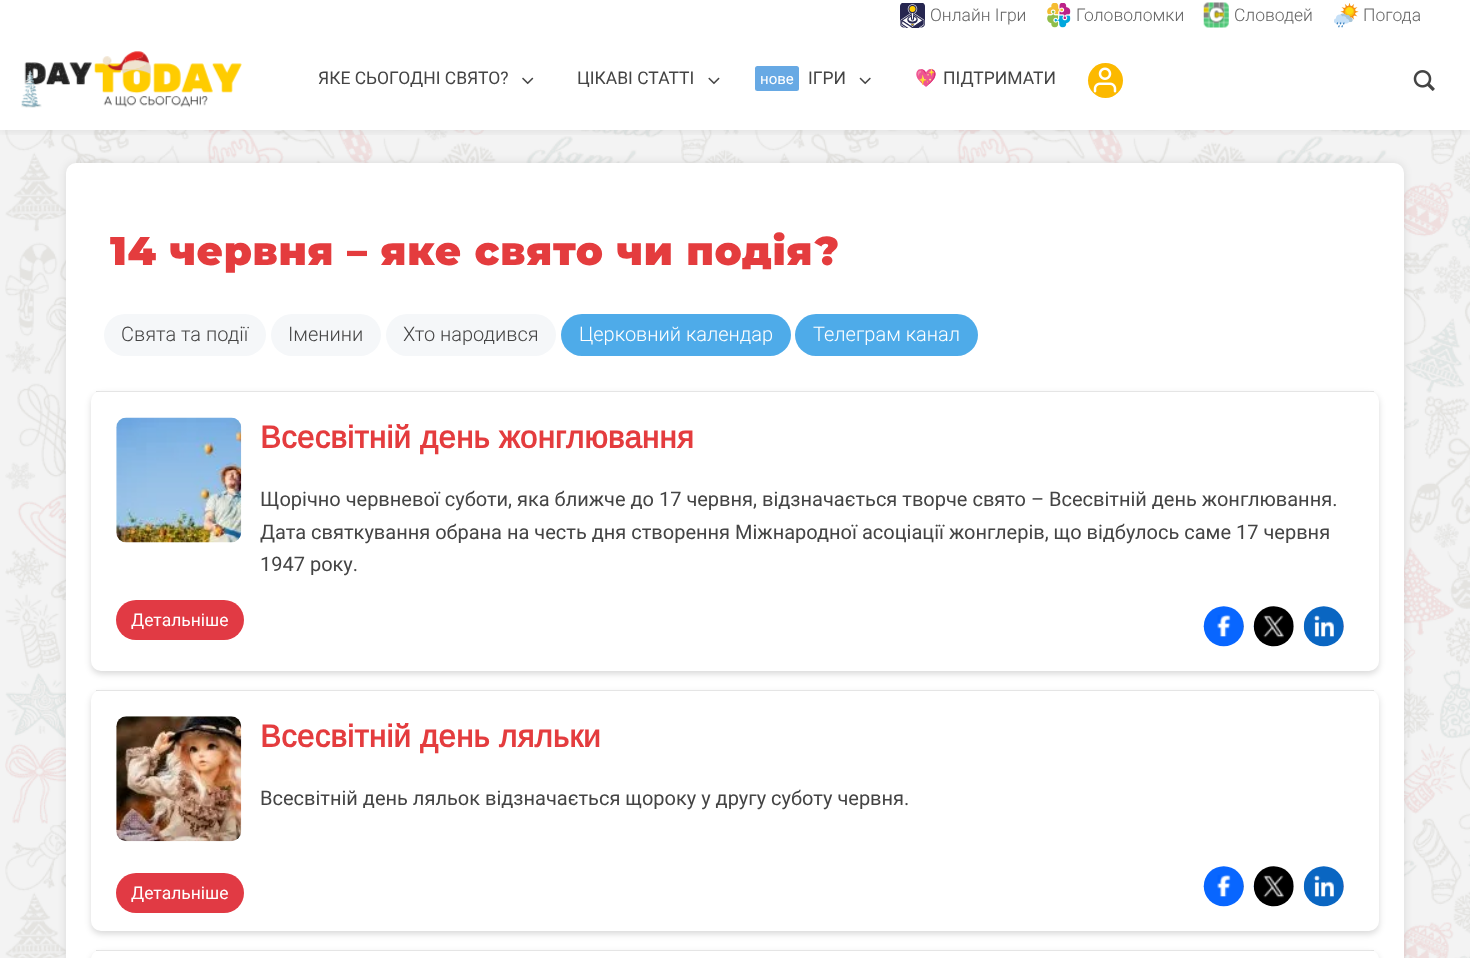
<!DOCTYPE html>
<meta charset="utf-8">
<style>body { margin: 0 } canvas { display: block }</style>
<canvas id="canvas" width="1470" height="958"></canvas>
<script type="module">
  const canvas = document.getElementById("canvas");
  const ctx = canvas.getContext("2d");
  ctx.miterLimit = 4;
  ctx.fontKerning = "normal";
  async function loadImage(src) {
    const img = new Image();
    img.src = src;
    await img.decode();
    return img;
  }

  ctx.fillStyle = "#f3f3f3";
  ctx.fillRect(0, 0, 1470, 958);
  ctx.drawImage(await loadImage("img1.png"), 5, 130, 1465, 828);
  ctx.fillStyle = "#ffffff";
  ctx.fillRect(0, 30, 1470, 100);
  ctx.save();
  ctx.beginPath();
  ctx.rect(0, 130, 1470, 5);
  ctx.clip();
  ctx.fillStyle = "rgba(0, 0, 0, 0.1)";
  ctx.filter = "blur(6px)";
  ctx.beginPath();
  ctx.rect(0, 30, 1470, 100);
  ctx.fill();
  ctx.filter = "none";
  ctx.restore();
  ctx.fillRect(0, 0, 1470, 30);
  ctx.drawImage(await loadImage("img2.png"), 900, 3, 25, 25);
  ctx.font = "300 17.5px Roboto";
  ctx.fillStyle = "#646464";
  ctx.fillText("Онлайн Ігри", 930, 21);
  ctx.drawImage(await loadImage("img3.png"), 1047, 3, 24, 25);
  ctx.fillText("Головоломки", 1076, 21);
  ctx.drawImage(await loadImage("img4.png"), 1203, 2, 26, 26);
  ctx.fillText("Словодей", 1234, 21);
  ctx.drawImage(await loadImage("img5.png"), 1334, 3, 25, 25);
  ctx.fillText("Погода", 1363, 21);
  ctx.drawImage(await loadImage("img6.png"), 21, 51, 221, 57);
  ctx.font = "17.5px Roboto";
  ctx.fillStyle = "#444444";
  ctx.fillText("ЯКЕ СЬОГОДНІ СВЯТО?", 318, 84);
  ctx.drawImage(await loadImage("img7.png"), 522, 77, 12, 8);
  ctx.fillText("ЦІКАВІ СТАТТІ", 577, 84);
  ctx.drawImage(await loadImage("img8.png"), 708, 77, 12, 8);
  ctx.fillStyle = "#67a9e4";
  ctx.beginPath();
  ctx.roundRect(755, 66, 44, 25, 2.5);
  ctx.fill();
  ctx.font = "15px Roboto";
  ctx.fillStyle = "#ffffff";
  ctx.fillText("нове", 760, 84);
  ctx.font = "17.5px Roboto";
  ctx.fillStyle = "#444444";
  ctx.fillText("ІГРИ", 808, 84);
  ctx.drawImage(await loadImage("img9.png"), 859, 77, 12, 8);
  ctx.font = "17.5px Noto Color Emoji";
  ctx.fillText("💖", 915, 84);
  ctx.font = "17.5px Roboto";
  ctx.fillText("ПІДТРИМАТИ", 943, 84);
  ctx.fillStyle = "#fcb900";
  ctx.beginPath();
  ctx.arc(1105.5, 80.5, 17.5, 0, Math.PI * 2);
  ctx.fill();
  ctx.drawImage(await loadImage("img10.png"), 1093, 67, 24, 26);
  ctx.drawImage(await loadImage("img11.png"), 1413, 70, 22, 21);
  ctx.fillStyle = "rgba(0, 0, 0, 0.1)";
  ctx.filter = "blur(4.5px)";
  ctx.beginPath();
  ctx.roundRect(66, 163, 1338, 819, 10);
  ctx.fill();
  ctx.filter = "none";
  ctx.fillStyle = "#ffffff";
  ctx.beginPath();
  ctx.roundRect(66, 163, 1338, 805, 10);
  ctx.fill();
  ctx.letterSpacing = "0.75px";
  ctx.font = "900 40px Montserrat";
  ctx.fillStyle = "#e43c3e";
  ctx.fillText("14 червня – яке свято чи подія?", 110, 265);
  ctx.fillStyle = "#f5f7f9";
  ctx.beginPath();
  ctx.roundRect(104, 314, 162, 42, 21);
  ctx.fill();
  ctx.letterSpacing = "0px";
  ctx.font = "300 20px Roboto";
  ctx.fillStyle = "#444444";
  ctx.fillText("Свята та події", 121, 341);
  ctx.fillStyle = "#f5f7f9";
  ctx.beginPath();
  ctx.roundRect(271, 314, 110, 42, 21);
  ctx.fill();
  ctx.fillStyle = "#444444";
  ctx.fillText("Іменини", 288, 341);
  ctx.fillStyle = "#f5f7f9";
  ctx.beginPath();
  ctx.roundRect(386, 314, 170, 42, 21);
  ctx.fill();
  ctx.fillStyle = "#444444";
  ctx.fillText("Хто народився", 403, 341);
  ctx.fillStyle = "#4eabe9";
  ctx.beginPath();
  ctx.roundRect(561, 314, 230, 42, 21);
  ctx.fill();
  ctx.fillStyle = "#ffffff";
  ctx.fillText("Церковний календар", 579, 341);
  ctx.fillStyle = "#4eabe9";
  ctx.beginPath();
  ctx.roundRect(795, 314, 183, 42, 21);
  ctx.fill();
  ctx.fillStyle = "#ffffff";
  ctx.fillText("Телеграм канал", 813, 341);
  ctx.fillStyle = "rgba(0, 0, 0, 0.15)";
  ctx.filter = "blur(3px)";
  ctx.beginPath();
  ctx.roundRect(91, 394, 1288, 280, 10);
  ctx.fill();
  ctx.filter = "none";
  ctx.fillStyle = "#ffffff";
  ctx.beginPath();
  ctx.roundRect(91, 391, 1288, 280, 10);
  ctx.fill();
  ctx.fillStyle = "rgba(0, 0, 0, 0.1)";
  ctx.fillRect(96, 391, 1278, 1);
  ctx.drawImage(await loadImage("img12.png"), 116, 417, 126, 126);
  ctx.letterSpacing = "0.2px";
  ctx.font = "bold 31.25px Arimo";
  ctx.fillStyle = "#e43c3e";
  ctx.fillText("Всесвітній день жонглювання", 260, 448);
  ctx.letterSpacing = "0px";
  ctx.font = "20px Roboto";
  ctx.fillStyle = "#444444";
  ctx.fillText("Щорічно червневої суботи, яка ближче до 17 червня, відзначається творче свято – Всесвітній день жонглювання.", 260, 506);
  ctx.fillText("Дата святкування обрана на честь дня створення Міжнародної асоціації жонглерів, що відбулось саме 17 червня", 260, 539);
  ctx.fillText("1947 року.", 260, 571);
  ctx.fillStyle = "#e13a44";
  ctx.beginPath();
  ctx.roundRect(116, 600, 128, 40, 20);
  ctx.fill();
  ctx.font = "17.5px Roboto";
  ctx.fillStyle = "#ffffff";
  ctx.fillText("Детальніше", 131, 626);
  ctx.drawImage(await loadImage("img13.png"), 1203, 606, 41, 41);
  ctx.drawImage(await loadImage("img14.png"), 1253, 606, 41, 41);
  ctx.drawImage(await loadImage("img15.png"), 1303, 606, 41, 41);
  ctx.fillStyle = "rgba(0, 0, 0, 0.15)";
  ctx.filter = "blur(3px)";
  ctx.beginPath();
  ctx.roundRect(91, 693, 1288, 241, 10);
  ctx.fill();
  ctx.filter = "none";
  ctx.fillStyle = "#ffffff";
  ctx.beginPath();
  ctx.roundRect(91, 690, 1288, 241, 10);
  ctx.fill();
  ctx.fillStyle = "rgba(0, 0, 0, 0.1)";
  ctx.fillRect(96, 690, 1278, 1);
  ctx.drawImage(await loadImage("img16.png"), 116, 716, 126, 126);
  ctx.letterSpacing = "0.2px";
  ctx.font = "bold 31.25px Arimo";
  ctx.fillStyle = "#e43c3e";
  ctx.fillText("Всесвітній день ляльки", 260, 747);
  ctx.letterSpacing = "0px";
  ctx.font = "20px Roboto";
  ctx.fillStyle = "#444444";
  ctx.fillText("Всесвітній день ляльок відзначається щороку у другу суботу червня.", 260, 805);
  ctx.fillStyle = "#e13a44";
  ctx.beginPath();
  ctx.roundRect(116, 873, 128, 40, 20);
  ctx.fill();
  ctx.font = "17.5px Roboto";
  ctx.fillStyle = "#ffffff";
  ctx.fillText("Детальніше", 131, 899);
  ctx.drawImage(await loadImage("img13.png"), 1203, 866, 41, 41);
  ctx.drawImage(await loadImage("img14.png"), 1253, 866, 41, 41);
  ctx.drawImage(await loadImage("img15.png"), 1303, 866, 41, 41);
  ctx.fillStyle = "rgba(0, 0, 0, 0.15)";
  ctx.filter = "blur(3px)";
  ctx.beginPath();
  ctx.roundRect(91, 953, 1288, 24, 10);
  ctx.fill();
  ctx.filter = "none";
  ctx.fillStyle = "#ffffff";
  ctx.beginPath();
  ctx.roundRect(91, 950, 1288, 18, 10);
  ctx.fill();
  ctx.fillStyle = "rgba(0, 0, 0, 0.1)";
  ctx.fillRect(96, 950, 1278, 1);
</script>
